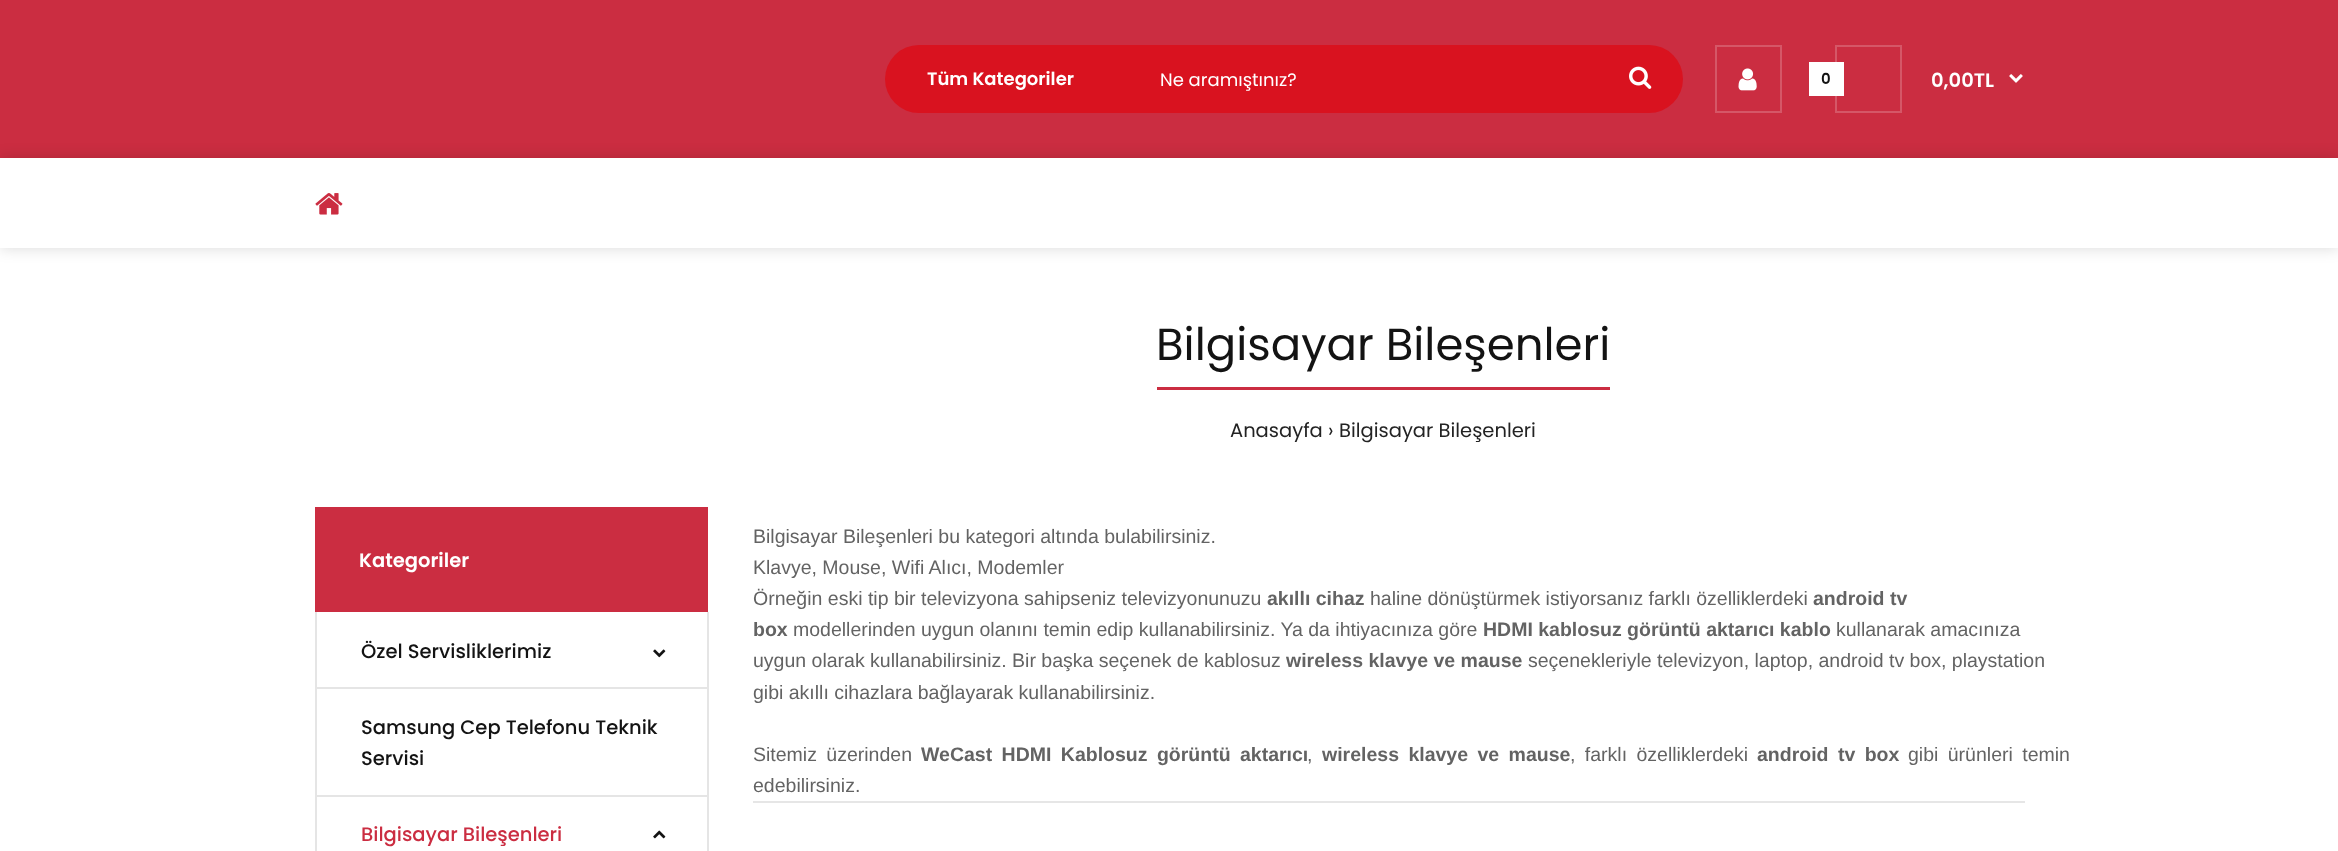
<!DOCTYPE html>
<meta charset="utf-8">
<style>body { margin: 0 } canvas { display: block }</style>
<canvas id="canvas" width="2338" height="851"></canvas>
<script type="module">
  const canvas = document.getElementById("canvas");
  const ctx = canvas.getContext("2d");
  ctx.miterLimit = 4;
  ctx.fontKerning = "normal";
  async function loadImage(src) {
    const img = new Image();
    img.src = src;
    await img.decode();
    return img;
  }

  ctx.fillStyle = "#ffffff";
  ctx.fillRect(0, 0, 2338, 851);
  ctx.fillStyle = "#cb2d41";
  ctx.fillRect(0, 0, 2338, 158);
  ctx.fillStyle = "#d9121f";
  ctx.beginPath();
  ctx.roundRect(885, 45, 798, 68, 34);
  ctx.fill();
  ctx.font = "600 18px Poppins";
  ctx.fillStyle = "#ffffff";
  ctx.fillText("Tüm Kategoriler", 927, 85);
  ctx.font = "18px Poppins";
  ctx.fillText("Ne aramıştınız?", 1160, 86);
  ctx.drawImage(await loadImage("img1.png"), 1629, 66, 23, 23);
  ctx.strokeStyle = "#d55767";
  ctx.lineWidth = 2;
  ctx.strokeRect(1716, 46, 65, 66);
  ctx.drawImage(await loadImage("img2.png"), 1738, 68, 19, 23);
  ctx.strokeRect(1836, 46, 65, 66);
  ctx.fillRect(1809, 62, 35, 34);
  ctx.font = "600 15px Poppins";
  ctx.fillStyle = "#131313";
  ctx.fillText("0", 1821, 84);
  ctx.font = "600 19.5px Poppins";
  ctx.fillStyle = "#ffffff";
  ctx.fillText("0,00TL", 1931, 87);
  ctx.drawImage(await loadImage("img3.png"), 2009, 74, 14, 9);
  ctx.save();
  ctx.beginPath();
  ctx.moveTo(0, 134);
  ctx.lineTo(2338, 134);
  ctx.lineTo(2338, 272);
  ctx.lineTo(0, 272);
  ctx.closePath();
  ctx.moveTo(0, 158);
  ctx.lineTo(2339, 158);
  ctx.lineTo(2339, 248);
  ctx.lineTo(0, 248);
  ctx.closePath();
  ctx.clip("evenodd");
  ctx.fillStyle = "rgba(0, 0, 0, 0.15)";
  ctx.filter = "blur(7.5px)";
  ctx.beginPath();
  ctx.rect(0, 158, 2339, 90);
  ctx.fill();
  ctx.filter = "none";
  ctx.restore();
  ctx.drawImage(await loadImage("img4.png"), 315, 193, 28, 22);
  ctx.fillStyle = "#cb2d41";
  ctx.fillRect(1157, 387, 453, 3);
  ctx.font = "45px Poppins";
  ctx.fillStyle = "#131313";
  ctx.fillText("Bilgisayar Bileşenleri", 1156, 360);
  ctx.font = "19.5px Poppins";
  ctx.fillStyle = "#232323";
  ctx.fillText("Anasayfa ›", 1230, 437);
  ctx.fillText("Bilgisayar Bileşenleri", 1339, 437);
  ctx.fillStyle = "#cb2d41";
  ctx.fillRect(315, 507, 393, 105);
  ctx.font = "600 19.5px Poppins";
  ctx.fillStyle = "#ffffff";
  ctx.fillText("Kategoriler", 359, 567);
  ctx.fillStyle = "#e5e5e5";
  ctx.fillRect(707, 612, 2, 239);
  ctx.fillRect(315, 612, 2, 239);
  ctx.font = "500 19.5px Poppins";
  ctx.fillStyle = "#131313";
  ctx.fillText("Özel Servisliklerimiz", 361, 658);
  ctx.drawImage(await loadImage("img5.png"), 653, 649, 13, 9);
  ctx.fillStyle = "#e5e5e5";
  ctx.fillRect(317, 687, 390, 2);
  ctx.fillStyle = "#131313";
  ctx.fillText("Samsung Cep Telefonu Teknik", 361, 734);
  ctx.fillText("Servisi", 361, 765);
  ctx.fillStyle = "#e5e5e5";
  ctx.fillRect(317, 795, 390, 2);
  ctx.fillStyle = "#cb2d41";
  ctx.fillText("Bilgisayar Bileşenleri", 361, 841);
  ctx.drawImage(await loadImage("img6.png"), 653, 830, 13, 9);
  ctx.font = "19.5px Liberation Sans";
  ctx.fillStyle = "#636363";
  ctx.fillText("Bilgisayar Bileşenleri bu kategori altında bulabilirsiniz.", 753, 543);
  ctx.fillText("Klavye, Mouse, Wifi Alıcı, Modemler", 753, 574);
  ctx.fillText("Örneğin eski tip bir televizyona sahipseniz televizyonunuzu", 753, 605);
  ctx.font = "bold 19.5px Liberation Sans";
  ctx.fillText("akıllı cihaz", 1267, 605);
  ctx.font = "19.5px Liberation Sans";
  ctx.fillText("haline dönüştürmek istiyorsanız farklı özelliklerdeki", 1370, 605);
  ctx.font = "bold 19.5px Liberation Sans";
  ctx.fillText("android tv", 1813, 605);
  ctx.fillText("box", 753, 636);
  ctx.font = "19.5px Liberation Sans";
  ctx.fillText("modellerinden uygun olanını temin edip kullanabilirsiniz. Ya da ihtiyacınıza göre", 793, 636);
  ctx.font = "bold 19.5px Liberation Sans";
  ctx.fillText("HDMI kablosuz görüntü aktarıcı kablo", 1483, 636);
  ctx.font = "19.5px Liberation Sans";
  ctx.fillText("kullanarak amacınıza", 1836, 636);
  ctx.fillText("uygun olarak kullanabilirsiniz. Bir başka seçenek de kablosuz", 753, 667);
  ctx.font = "bold 19.5px Liberation Sans";
  ctx.fillText("wireless klavye ve mause", 1286, 667);
  ctx.font = "19.5px Liberation Sans";
  ctx.fillText("seçenekleriyle televizyon, laptop, android tv box, playstation", 1528, 667);
  ctx.fillText("gibi akıllı cihazlara bağlayarak kullanabilirsiniz.", 753, 699);
  ctx.wordSpacing = "4px";
  ctx.fillText("Sitemiz üzerinden", 753, 761);
  ctx.font = "bold 19.5px Liberation Sans";
  ctx.fillText("WeCast HDMI Kablosuz görüntü aktarıcı", 921, 761);
  ctx.wordSpacing = "0px";
  ctx.font = "19.5px Liberation Sans";
  ctx.fillText(",", 1307, 761);
  ctx.wordSpacing = "4px";
  ctx.font = "bold 19.5px Liberation Sans";
  ctx.fillText("wireless klavye ve mause", 1322, 761);
  ctx.font = "19.5px Liberation Sans";
  ctx.fillText(", farklı özelliklerdeki", 1570, 761);
  ctx.font = "bold 19.5px Liberation Sans";
  ctx.fillText("android tv box", 1757, 761);
  ctx.font = "19.5px Liberation Sans";
  ctx.fillText("gibi ürünleri temin", 1908, 761);
  ctx.wordSpacing = "0px";
  ctx.fillText("edebilirsiniz.", 753, 792);
  ctx.fillStyle = "#e6e6e6";
  ctx.fillRect(753, 801, 1272, 2);
</script>
